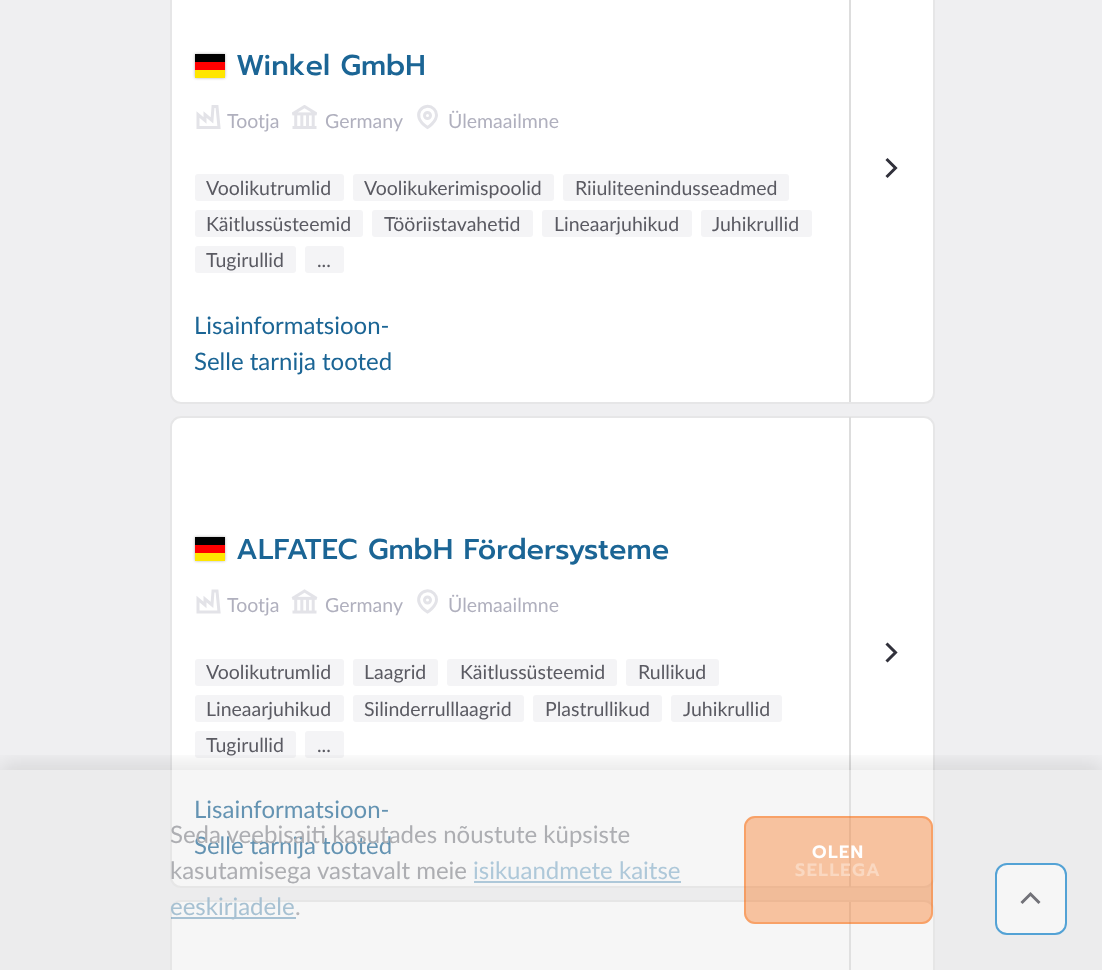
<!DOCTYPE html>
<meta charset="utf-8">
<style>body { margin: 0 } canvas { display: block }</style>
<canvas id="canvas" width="1102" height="970"></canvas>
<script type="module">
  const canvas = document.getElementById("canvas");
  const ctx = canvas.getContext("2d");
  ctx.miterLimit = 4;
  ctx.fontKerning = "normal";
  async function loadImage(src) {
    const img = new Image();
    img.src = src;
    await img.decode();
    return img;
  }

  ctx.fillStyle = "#efeff1";
  ctx.fillRect(0, 0, 1102, 970);
  ctx.fillStyle = "#ffffff";
  ctx.beginPath();
  ctx.roundRect(170, -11, 765, 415, 11);
  ctx.fill();
  ctx.beginPath();
  ctx.roundRect(171, -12, 763, 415, 10);
  ctx.strokeStyle = "rgba(49, 49, 59, 0.12)";
  ctx.lineWidth = 2;
  ctx.stroke();
  ctx.fillStyle = "rgba(0, 0, 0, 0.3)";
  ctx.filter = "blur(1.5px)";
  ctx.beginPath();
  ctx.rect(195, 54, 30, 24);
  ctx.fill();
  ctx.filter = "none";
  ctx.fillStyle = "#ffe600";
  ctx.fillRect(195, 70, 30, 8);
  ctx.fillStyle = "#000000";
  ctx.fillRect(195, 54, 30, 8);
  ctx.fillStyle = "#ff0000";
  ctx.fillRect(195, 62, 30, 8);
  ctx.font = "500 28.75px Prompt";
  ctx.fillStyle = "#1b6595";
  ctx.fillText("Winkel GmbH", 236, 75);
  ctx.fillStyle = "#dddddd";
  ctx.fillRect(849, 0, 2, 402);
  ctx.beginPath();
  ctx.moveTo(886.5, 177);
  ctx.lineTo(895.5, 168);
  ctx.lineTo(886.5, 159);
  ctx.strokeStyle = "#31313b";
  ctx.lineWidth = 3;
  ctx.stroke();
  ctx.beginPath();
  ctx.moveTo(219, 127.5);
  ctx.lineTo(217, 106.5);
  ctx.lineTo(213, 106.5);
  ctx.lineTo(212, 120.5);
  ctx.lineTo(205, 114.5);
  ctx.lineTo(205, 120.5);
  ctx.lineTo(198, 114.5);
  ctx.lineTo(198, 127.5);
  ctx.closePath();
  ctx.strokeStyle = "#e3e3e8";
  ctx.stroke();
  ctx.font = "19.5px Lato";
  ctx.fillStyle = "#b0b0be";
  ctx.fillText("Tootja", 227, 128);
  ctx.drawImage(await loadImage("img1.png"), 292, 105, 25, 24);
  ctx.fillText("Germany", 325, 128);
  ctx.beginPath();
  ctx.moveTo(436.5, 115);
  ctx.bezierCurveTo(436.5, 122, 427.5, 127.5, 427.5, 127.5);
  ctx.bezierCurveTo(408.5, 115.5, 424.5, 100, 434, 109);
  ctx.bezierCurveTo(435.5, 110.5, 436.5, 113, 436.5, 115);
  ctx.closePath();
  ctx.stroke();
  ctx.beginPath();
  ctx.arc(427.5, 115.5, 3, 0, Math.PI * 2);
  ctx.stroke();
  ctx.fillText("Ülemaailmne", 448, 128);
  ctx.fillStyle = "#f4f4f6";
  ctx.beginPath();
  ctx.roundRect(195, 174, 149, 27, 3);
  ctx.fill();
  ctx.fillStyle = "#5a5a62";
  ctx.fillText("Voolikutrumlid", 206, 195);
  ctx.fillStyle = "#f4f4f6";
  ctx.beginPath();
  ctx.roundRect(353, 174, 201, 27, 3);
  ctx.fill();
  ctx.fillStyle = "#5a5a62";
  ctx.fillText("Voolikukerimispoolid", 364, 195);
  ctx.fillStyle = "#f4f4f6";
  ctx.beginPath();
  ctx.roundRect(563, 174, 226, 27, 3);
  ctx.fill();
  ctx.fillStyle = "#5a5a62";
  ctx.fillText("Riiuliteenindusseadmed", 575, 195);
  ctx.fillStyle = "#f4f4f6";
  ctx.beginPath();
  ctx.roundRect(195, 210, 168, 27, 3);
  ctx.fill();
  ctx.fillStyle = "#5a5a62";
  ctx.fillText("Käitlussüsteemid", 206, 231);
  ctx.fillStyle = "#f4f4f6";
  ctx.beginPath();
  ctx.roundRect(372, 210, 161, 27, 3);
  ctx.fill();
  ctx.fillStyle = "#5a5a62";
  ctx.fillText("Tööriistavahetid", 384, 231);
  ctx.fillStyle = "#f4f4f6";
  ctx.beginPath();
  ctx.roundRect(542, 210, 150, 27, 3);
  ctx.fill();
  ctx.fillStyle = "#5a5a62";
  ctx.fillText("Lineaarjuhikud", 554, 231);
  ctx.fillStyle = "#f4f4f6";
  ctx.beginPath();
  ctx.roundRect(701, 210, 111, 27, 3);
  ctx.fill();
  ctx.fillStyle = "#5a5a62";
  ctx.fillText("Juhikrullid", 712, 231);
  ctx.fillStyle = "#f4f4f6";
  ctx.beginPath();
  ctx.roundRect(195, 246, 101, 27, 3);
  ctx.fill();
  ctx.fillStyle = "#5a5a62";
  ctx.fillText("Tugirullid", 206, 267);
  ctx.fillStyle = "#f4f4f6";
  ctx.beginPath();
  ctx.roundRect(305, 246, 39, 27, 3);
  ctx.fill();
  ctx.fillStyle = "#5a5a62";
  ctx.fillText("...", 317, 267);
  ctx.font = "24px Lato";
  ctx.fillStyle = "#1b6595";
  ctx.fillText("Lisainformatsioon-", 194, 334);
  ctx.fillText("Selle tarnija tooted", 194, 370);
  ctx.fillStyle = "#ffffff";
  ctx.beginPath();
  ctx.roundRect(170, 416, 765, 472, 11);
  ctx.fill();
  ctx.beginPath();
  ctx.roundRect(171, 417, 763, 470, 10);
  ctx.strokeStyle = "rgba(49, 49, 59, 0.12)";
  ctx.lineWidth = 2;
  ctx.stroke();
  ctx.fillStyle = "rgba(0, 0, 0, 0.3)";
  ctx.filter = "blur(1.5px)";
  ctx.beginPath();
  ctx.rect(195, 537, 30, 24);
  ctx.fill();
  ctx.filter = "none";
  ctx.fillStyle = "#ffe600";
  ctx.fillRect(195, 553, 30, 8);
  ctx.fillStyle = "#000000";
  ctx.fillRect(195, 537, 30, 8);
  ctx.fillStyle = "#ff0000";
  ctx.fillRect(195, 545, 30, 8);
  ctx.font = "500 28.75px Prompt";
  ctx.fillStyle = "#1b6595";
  ctx.fillText("ALFATEC GmbH Fördersysteme", 236, 559);
  ctx.fillStyle = "#dddddd";
  ctx.fillRect(849, 417, 2, 470);
  ctx.beginPath();
  ctx.moveTo(886.5, 661.5);
  ctx.lineTo(895.5, 652.5);
  ctx.lineTo(886.5, 643.5);
  ctx.strokeStyle = "#31313b";
  ctx.lineWidth = 3;
  ctx.stroke();
  ctx.beginPath();
  ctx.moveTo(219, 612);
  ctx.lineTo(217, 591);
  ctx.lineTo(213, 591);
  ctx.lineTo(212, 605);
  ctx.lineTo(205, 599);
  ctx.lineTo(205, 605);
  ctx.lineTo(198, 599);
  ctx.lineTo(198, 612);
  ctx.closePath();
  ctx.strokeStyle = "#e3e3e8";
  ctx.stroke();
  ctx.font = "19.5px Lato";
  ctx.fillStyle = "#b0b0be";
  ctx.fillText("Tootja", 227, 612);
  ctx.drawImage(await loadImage("img2.png"), 291, 589, 27, 25);
  ctx.fillText("Germany", 325, 612);
  ctx.beginPath();
  ctx.moveTo(436.5, 599.5);
  ctx.bezierCurveTo(436.5, 606.5, 427.5, 612, 427.5, 612);
  ctx.bezierCurveTo(408.5, 600, 424.5, 584.5, 434, 593.5);
  ctx.bezierCurveTo(435.5, 595, 436.5, 597.5, 436.5, 599.5);
  ctx.closePath();
  ctx.stroke();
  ctx.beginPath();
  ctx.arc(427.5, 600, 3, 0, Math.PI * 2);
  ctx.stroke();
  ctx.fillText("Ülemaailmne", 448, 612);
  ctx.fillStyle = "#f4f4f6";
  ctx.beginPath();
  ctx.roundRect(195, 659, 149, 27, 3);
  ctx.fill();
  ctx.fillStyle = "#5a5a62";
  ctx.fillText("Voolikutrumlid", 206, 679);
  ctx.fillStyle = "#f4f4f6";
  ctx.beginPath();
  ctx.roundRect(353, 659, 85, 27, 3);
  ctx.fill();
  ctx.fillStyle = "#5a5a62";
  ctx.fillText("Laagrid", 364, 679);
  ctx.fillStyle = "#f4f4f6";
  ctx.beginPath();
  ctx.roundRect(447, 659, 170, 27, 3);
  ctx.fill();
  ctx.fillStyle = "#5a5a62";
  ctx.fillText("Käitlussüsteemid", 460, 679);
  ctx.fillStyle = "#f4f4f6";
  ctx.beginPath();
  ctx.roundRect(626, 659, 93, 27, 3);
  ctx.fill();
  ctx.fillStyle = "#5a5a62";
  ctx.fillText("Rullikud", 638, 679);
  ctx.fillStyle = "#f4f4f6";
  ctx.beginPath();
  ctx.roundRect(195, 695, 149, 27, 3);
  ctx.fill();
  ctx.fillStyle = "#5a5a62";
  ctx.fillText("Lineaarjuhikud", 206, 716);
  ctx.fillStyle = "#f4f4f6";
  ctx.beginPath();
  ctx.roundRect(353, 695, 171, 27, 3);
  ctx.fill();
  ctx.fillStyle = "#5a5a62";
  ctx.fillText("Silinderrulllaagrid", 364, 716);
  ctx.fillStyle = "#f4f4f6";
  ctx.beginPath();
  ctx.roundRect(533, 695, 129, 27, 3);
  ctx.fill();
  ctx.fillStyle = "#5a5a62";
  ctx.fillText("Plastrullikud", 545, 716);
  ctx.fillStyle = "#f4f4f6";
  ctx.beginPath();
  ctx.roundRect(671, 695, 111, 27, 3);
  ctx.fill();
  ctx.fillStyle = "#5a5a62";
  ctx.fillText("Juhikrullid", 683, 716);
  ctx.fillStyle = "#f4f4f6";
  ctx.beginPath();
  ctx.roundRect(195, 731, 101, 27, 3);
  ctx.fill();
  ctx.fillStyle = "#5a5a62";
  ctx.fillText("Tugirullid", 206, 752);
  ctx.fillStyle = "#f4f4f6";
  ctx.beginPath();
  ctx.roundRect(305, 731, 39, 27, 3);
  ctx.fill();
  ctx.fillStyle = "#5a5a62";
  ctx.fillText("...", 317, 752);
  ctx.font = "24px Lato";
  ctx.fillStyle = "#1b6595";
  ctx.fillText("Lisainformatsioon-", 194, 818);
  ctx.fillText("Selle tarnija tooted", 194, 854);
  ctx.fillStyle = "#ffffff";
  ctx.beginPath();
  ctx.roundRect(170, 900, 765, 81, 11);
  ctx.fill();
  ctx.beginPath();
  ctx.roundRect(171, 901, 763, 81, 10);
  ctx.strokeStyle = "rgba(49, 49, 59, 0.12)";
  ctx.lineWidth = 2;
  ctx.stroke();
  ctx.fillStyle = "#dddddd";
  ctx.fillRect(849, 902, 2, 68);
  ctx.fillStyle = "#ffffff";
  ctx.beginPath();
  ctx.roundRect(996, 864, 70, 70, 11);
  ctx.fill();
  ctx.strokeStyle = "#017ccc";
  ctx.stroke();
  ctx.beginPath();
  ctx.moveTo(1039.5, 903);
  ctx.lineTo(1030.5, 894);
  ctx.lineTo(1021.5, 903);
  ctx.strokeStyle = "#31313b";
  ctx.lineWidth = 3;
  ctx.stroke();
  ctx.save();
  ctx.beginPath();
  ctx.rect(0, 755, 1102, 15);
  ctx.clip();
  ctx.fillStyle = "rgba(0, 0, 0, 0.11)";
  ctx.filter = "blur(11px)";
  ctx.beginPath();
  ctx.rect(0, 765, 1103, 201);
  ctx.fill();
  ctx.filter = "none";
  ctx.restore();
  ctx.fillStyle = "rgba(230, 230, 230, 0.36)";
  ctx.fillRect(0, 770, 1102, 200);
  ctx.fillStyle = "#adaeb2";
  ctx.fillText("Seda veebisaiti kasutades nõustute küpsiste", 170, 843);
  ctx.fillText("kasutamisega vastavalt meie", 170, 879);
  ctx.fillStyle = "#aec8d9";
  ctx.fillText("isikuandmete kaitse", 473, 879);
  ctx.fillRect(474, 881, 207, 2);
  ctx.fillStyle = "rgba(27, 101, 149, 0.36)";
  ctx.fillRect(171, 917, 125, 2);
  ctx.fillStyle = "#a7c1d2";
  ctx.fillText("eeskirjadele", 170, 915);
  ctx.fillStyle = "#b6b6b9";
  ctx.fillText(".", 295, 915);
  ctx.fillStyle = "rgba(250, 103, 5, 0.36)";
  ctx.beginPath();
  ctx.roundRect(744, 816, 189, 108, 11);
  ctx.fill();
  ctx.beginPath();
  ctx.roundRect(745, 817, 187, 106, 10);
  ctx.strokeStyle = "rgba(250, 103, 5, 0.36)";
  ctx.lineWidth = 2;
  ctx.stroke();
  ctx.letterSpacing = "1.5px";
  ctx.font = "600 18px Prompt";
  ctx.fillStyle = "#ffffff";
  ctx.fillText("OLEN", 812, 858);
  ctx.fillStyle = "#fad8c1";
  ctx.fillText("SELLEGA", 795, 876);
</script>
